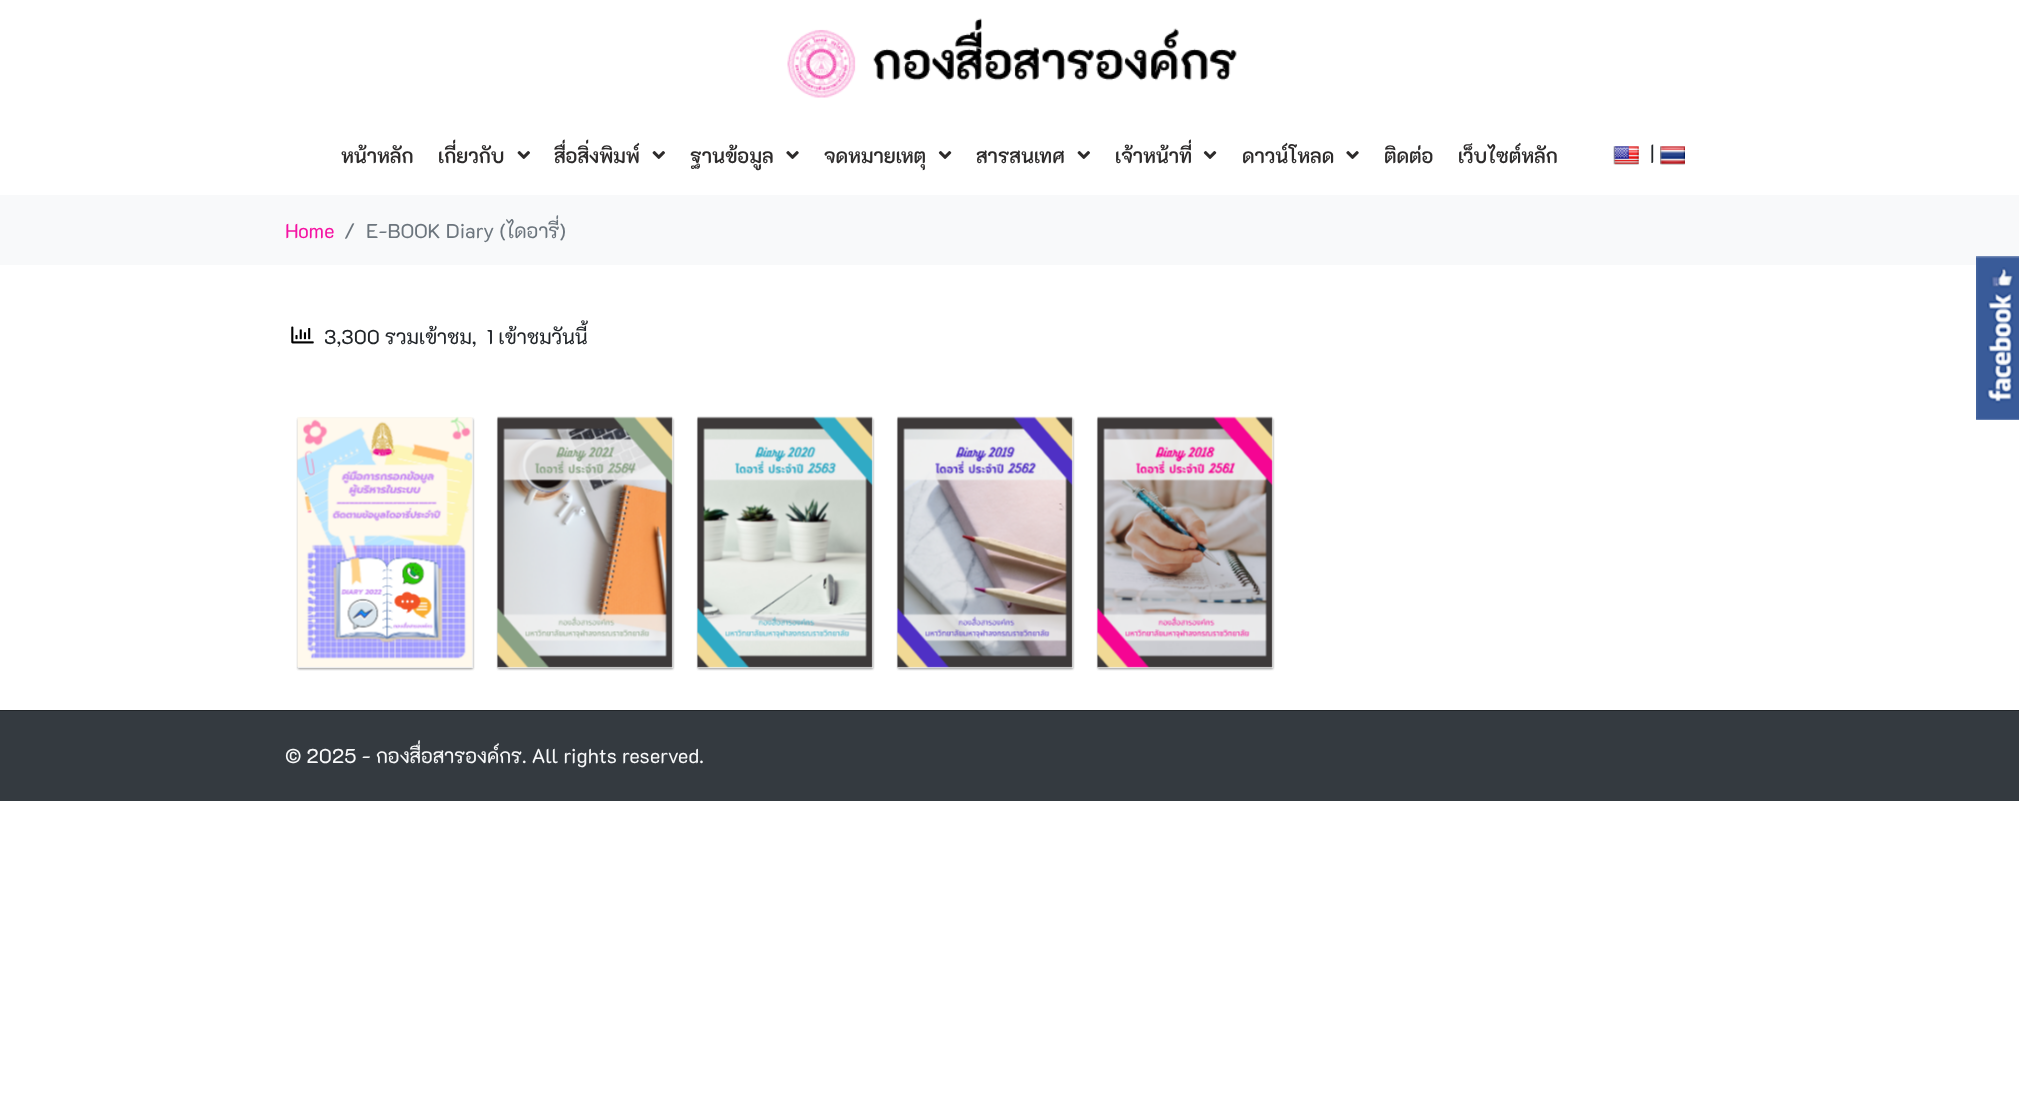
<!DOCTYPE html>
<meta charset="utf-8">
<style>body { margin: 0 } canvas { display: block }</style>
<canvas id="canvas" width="2019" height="1116"></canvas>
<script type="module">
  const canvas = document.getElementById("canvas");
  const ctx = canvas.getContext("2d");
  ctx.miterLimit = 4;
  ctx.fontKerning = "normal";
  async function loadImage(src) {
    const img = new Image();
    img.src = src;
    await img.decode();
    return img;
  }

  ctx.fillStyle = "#ffffff";
  ctx.fillRect(0, 0, 2019, 1116);
  ctx.drawImage(await loadImage("img1.png"), 787, 18, 450, 80);
  ctx.font = "600 20px 'K2D'";
  ctx.fillStyle = "#2d2b2b";
  ctx.fillText("หน้าหลัก", 341, 163);
  ctx.fillText("เกี่ยวกับ", 438, 163);
  ctx.drawImage(await loadImage("img2.png"), 517, 151, 13, 8);
  ctx.fillText("สื่อสิ่งพิมพ์", 554, 163);
  ctx.drawImage(await loadImage("img2.png"), 652, 151, 13, 8);
  ctx.fillText("ฐานข้อมูล", 690, 163);
  ctx.drawImage(await loadImage("img3.png"), 786, 151, 13, 8);
  ctx.fillText("จดหมายเหตุ", 824, 163);
  ctx.drawImage(await loadImage("img4.png"), 938, 151, 14, 8);
  ctx.fillText("สารสนเทศ", 976, 163);
  ctx.drawImage(await loadImage("img2.png"), 1077, 151, 13, 8);
  ctx.fillText("เจ้าหน้าที่", 1115, 163);
  ctx.drawImage(await loadImage("img4.png"), 1203, 151, 14, 8);
  ctx.fillText("ดาวน์โหลด", 1242, 163);
  ctx.drawImage(await loadImage("img3.png"), 1346, 151, 13, 8);
  ctx.fillText("ติดต่อ", 1384, 163);
  ctx.fillText("เว็บไซต์หลัก", 1458, 163);
  ctx.drawImage(await loadImage("img5.png"), 1613, 146, 26, 19);
  ctx.font = "20px 'K2D'";
  ctx.fillStyle = "#212529";
  ctx.fillText("|", 1650, 160);
  ctx.drawImage(await loadImage("img6.png"), 1660, 146, 25, 19);
  ctx.fillStyle = "#f8f9fa";
  ctx.fillRect(0, 195, 2019, 70);
  ctx.fillStyle = "#f514a3";
  ctx.fillText("Home", 285, 238);
  ctx.fillStyle = "#6c757d";
  ctx.fillText("/", 344, 238);
  ctx.fillText("E-BOOK Diary (ไดอารี่)", 366, 238);
  ctx.drawImage(await loadImage("img7.png"), 291, 326, 23, 18);
  ctx.fillStyle = "#212529";
  ctx.fillText("3,300 รวมเข้าชม,  1 เข้าชมวันนี้", 324, 344);
  ctx.fillStyle = "rgba(0, 0, 0, 0.22)";
  ctx.filter = "blur(1px)";
  ctx.beginPath();
  ctx.rect(298, 419, 175, 250);
  ctx.fill();
  ctx.filter = "none";
  ctx.filter = "blur(1px)";
  ctx.beginPath();
  ctx.rect(298, 419, 175, 250);
  ctx.fill();
  ctx.filter = "none";
  ctx.fillStyle = "#eeeeee";
  ctx.fillRect(298, 418, 175, 250);
  ctx.drawImage(await loadImage("img8.png"), 297, 416, 176, 251);
  ctx.fillStyle = "rgba(0, 0, 0, 0.22)";
  ctx.filter = "blur(1px)";
  ctx.beginPath();
  ctx.rect(498, 419, 175, 250);
  ctx.fill();
  ctx.filter = "none";
  ctx.filter = "blur(1px)";
  ctx.beginPath();
  ctx.rect(498, 419, 175, 250);
  ctx.fill();
  ctx.filter = "none";
  ctx.fillStyle = "#eeeeee";
  ctx.fillRect(498, 418, 175, 250);
  ctx.drawImage(await loadImage("img9.png"), 497, 416, 176, 252);
  ctx.fillStyle = "rgba(0, 0, 0, 0.22)";
  ctx.filter = "blur(1px)";
  ctx.beginPath();
  ctx.rect(698, 419, 175, 250);
  ctx.fill();
  ctx.filter = "none";
  ctx.filter = "blur(1px)";
  ctx.beginPath();
  ctx.rect(698, 419, 175, 250);
  ctx.fill();
  ctx.filter = "none";
  ctx.fillStyle = "#eeeeee";
  ctx.fillRect(698, 418, 175, 250);
  ctx.drawImage(await loadImage("img10.png"), 697, 416, 176, 252);
  ctx.fillStyle = "rgba(0, 0, 0, 0.22)";
  ctx.filter = "blur(1px)";
  ctx.beginPath();
  ctx.rect(898, 419, 175, 250);
  ctx.fill();
  ctx.filter = "none";
  ctx.filter = "blur(1px)";
  ctx.beginPath();
  ctx.rect(898, 419, 175, 250);
  ctx.fill();
  ctx.filter = "none";
  ctx.fillStyle = "#eeeeee";
  ctx.fillRect(898, 418, 175, 250);
  ctx.drawImage(await loadImage("img11.png"), 897, 416, 176, 252);
  ctx.fillStyle = "rgba(0, 0, 0, 0.22)";
  ctx.filter = "blur(1px)";
  ctx.beginPath();
  ctx.rect(1098, 419, 175, 250);
  ctx.fill();
  ctx.filter = "none";
  ctx.filter = "blur(1px)";
  ctx.beginPath();
  ctx.rect(1098, 419, 175, 250);
  ctx.fill();
  ctx.filter = "none";
  ctx.fillStyle = "#eeeeee";
  ctx.fillRect(1098, 418, 175, 250);
  ctx.drawImage(await loadImage("img12.png"), 1097, 416, 176, 252);
  ctx.fillStyle = "#343a40";
  ctx.fillRect(0, 711, 2019, 90);
  ctx.fillStyle = "#212529";
  ctx.fillRect(0, 710, 2019, 1);
  ctx.fillStyle = "#f8f9fa";
  ctx.fillText("© 2025 - กองสื่อสารองค์กร. All rights reserved.", 285, 763);
  ctx.drawImage(await loadImage("img13.png"), 1976, 256, 43, 164);
</script>
